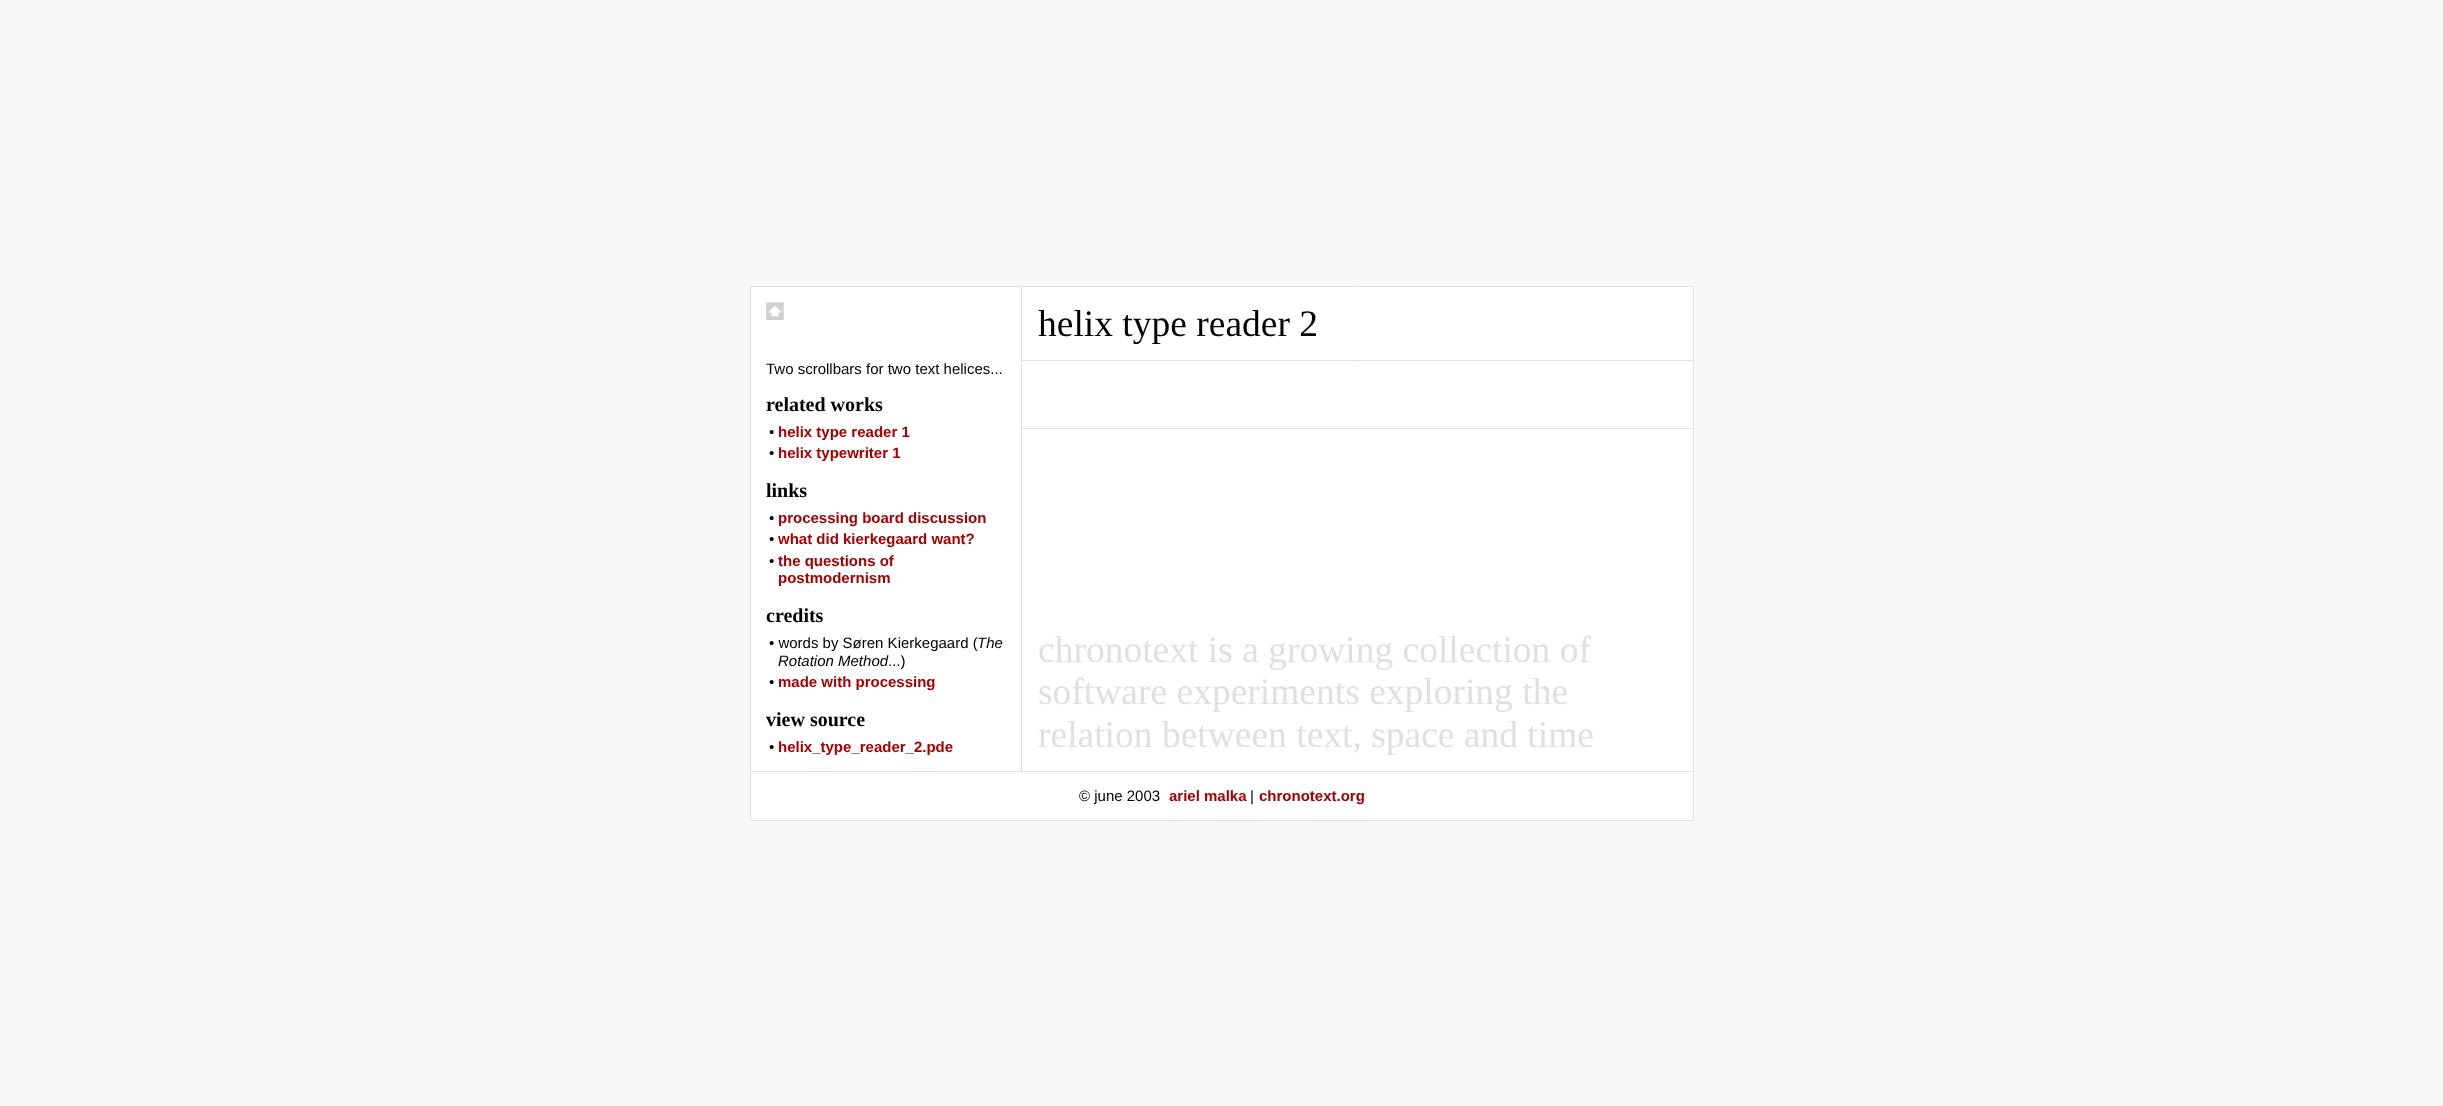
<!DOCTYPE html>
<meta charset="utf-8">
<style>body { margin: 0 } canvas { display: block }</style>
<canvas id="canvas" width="2443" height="1106"></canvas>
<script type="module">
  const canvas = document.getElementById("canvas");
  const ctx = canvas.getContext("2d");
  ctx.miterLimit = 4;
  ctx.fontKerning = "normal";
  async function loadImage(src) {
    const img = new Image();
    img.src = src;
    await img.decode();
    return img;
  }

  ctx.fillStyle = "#f8f8f8";
  ctx.fillRect(0, 0, 2443, 1106);
  ctx.fillStyle = "#ffffff";
  ctx.fillRect(751, 287, 270, 486);
  ctx.fillStyle = "#e0e0e0";
  ctx.fillRect(750, 286, 271, 1);
  ctx.fillRect(750, 286, 1, 75);
  ctx.drawImage(await loadImage("img1.png"), 766, 302, 18, 18);
  ctx.fillStyle = "#ffffff";
  ctx.beginPath();
  ctx.rect(1021.5, 286.5, 672, 74);
  ctx.fill();
  ctx.strokeStyle = "#e0e0e0";
  ctx.stroke();
  ctx.font = "37.5px Liberation Serif";
  ctx.fillStyle = "#000000";
  ctx.fillText("helix type reader 2", 1038, 336);
  ctx.fillStyle = "#e0e0e0";
  ctx.fillRect(750, 771, 271, 1);
  ctx.fillRect(750, 361, 1, 412);
  ctx.font = "15px Liberation Sans";
  ctx.fillStyle = "#000000";
  ctx.fillText("Two scrollbars for two text helices...", 766, 374);
  ctx.font = "bold 20px Liberation Serif";
  ctx.fillText("related works", 766, 411);
  ctx.font = "15px Liberation Sans";
  ctx.fillText("•", 769, 437);
  ctx.font = "bold 15px Liberation Sans";
  ctx.fillStyle = "#a80000";
  ctx.fillText("helix type reader 1", 778, 437);
  ctx.font = "15px Liberation Sans";
  ctx.fillStyle = "#000000";
  ctx.fillText("•", 769, 458);
  ctx.font = "bold 15px Liberation Sans";
  ctx.fillStyle = "#a80000";
  ctx.fillText("helix typewriter 1", 778, 458);
  ctx.font = "bold 20px Liberation Serif";
  ctx.fillStyle = "#000000";
  ctx.fillText("links", 766, 497);
  ctx.font = "15px Liberation Sans";
  ctx.fillText("•", 769, 523);
  ctx.font = "bold 15px Liberation Sans";
  ctx.fillStyle = "#a80000";
  ctx.fillText("processing board discussion", 778, 523);
  ctx.font = "15px Liberation Sans";
  ctx.fillStyle = "#000000";
  ctx.fillText("•", 769, 544);
  ctx.font = "bold 15px Liberation Sans";
  ctx.fillStyle = "#a80000";
  ctx.fillText("what did kierkegaard want?", 778, 544);
  ctx.font = "15px Liberation Sans";
  ctx.fillStyle = "#000000";
  ctx.fillText("•", 769, 566);
  ctx.font = "bold 15px Liberation Sans";
  ctx.fillStyle = "#a80000";
  ctx.fillText("the questions of", 778, 566);
  ctx.fillText("postmodernism", 778, 583);
  ctx.font = "bold 20px Liberation Serif";
  ctx.fillStyle = "#000000";
  ctx.fillText("credits", 766, 622);
  ctx.font = "15px Liberation Sans";
  ctx.fillText("• words by Søren Kierkegaard (", 769, 648);
  ctx.font = "italic 15px Liberation Sans";
  ctx.fillText("The", 977, 648);
  ctx.fillText("Rotation Method", 778, 666);
  ctx.font = "15px Liberation Sans";
  ctx.fillText("...)", 888, 666);
  ctx.fillText("•", 769, 687);
  ctx.font = "bold 15px Liberation Sans";
  ctx.fillStyle = "#a80000";
  ctx.fillText("made with processing", 778, 687);
  ctx.font = "bold 20px Liberation Serif";
  ctx.fillStyle = "#000000";
  ctx.fillText("view source", 766, 726);
  ctx.font = "15px Liberation Sans";
  ctx.fillText("•", 769, 752);
  ctx.font = "bold 15px Liberation Sans";
  ctx.fillStyle = "#a80000";
  ctx.fillText("helix_type_reader_2.pde", 778, 752);
  ctx.fillStyle = "#ffffff";
  ctx.fillRect(1022, 361, 671, 67);
  ctx.fillStyle = "#e0e0e0";
  ctx.fillRect(1693, 361, 1, 460);
  ctx.fillRect(1021, 428, 673, 1);
  ctx.fillRect(1021, 361, 1, 68);
  ctx.fillStyle = "#ffffff";
  ctx.fillRect(1022, 429, 671, 344);
  ctx.fillStyle = "#e0e0e0";
  ctx.fillRect(1021, 771, 673, 1);
  ctx.fillRect(1021, 429, 1, 344);
  ctx.font = "37.5px Liberation Serif";
  ctx.fillText("chronotext is a growing collection of", 1038, 662);
  ctx.fillText("software experiments exploring the", 1038, 704);
  ctx.fillText("relation between text, space and time", 1038, 747);
  ctx.fillStyle = "#ffffff";
  ctx.fillRect(751, 773, 942, 47);
  ctx.fillStyle = "#e0e0e0";
  ctx.fillRect(750, 820, 944, 1);
  ctx.fillRect(750, 773, 1, 48);
  ctx.font = "15px Liberation Sans";
  ctx.fillStyle = "#000000";
  ctx.fillText("© june 2003", 1079, 801);
  ctx.font = "bold 15px Liberation Sans";
  ctx.fillStyle = "#a80000";
  ctx.fillText("ariel malka", 1169, 801);
  ctx.font = "15px Liberation Sans";
  ctx.fillStyle = "#000000";
  ctx.fillText("|", 1250, 801);
  ctx.font = "bold 15px Liberation Sans";
  ctx.fillStyle = "#a80000";
  ctx.fillText("chronotext.org", 1259, 801);
</script>
